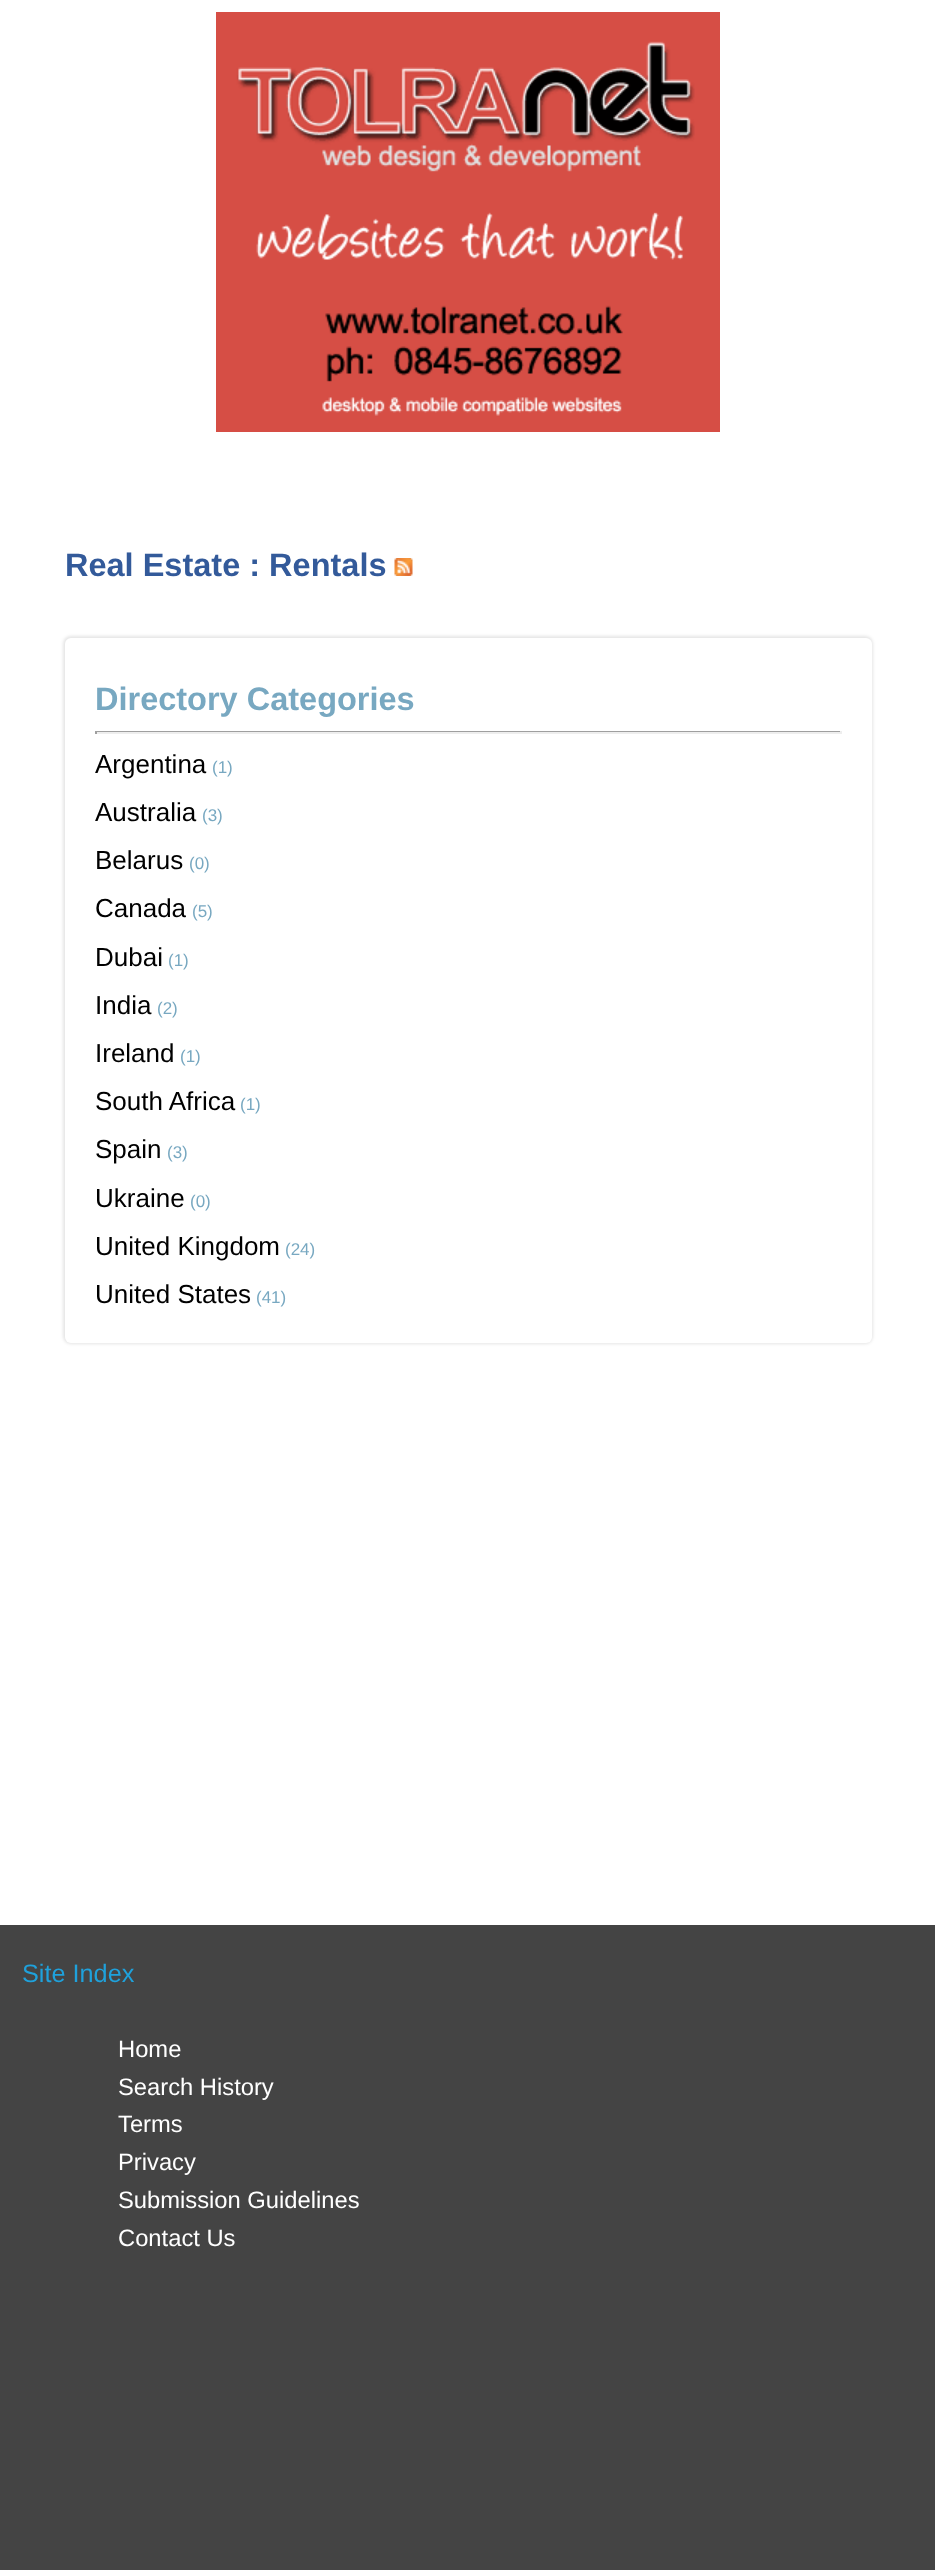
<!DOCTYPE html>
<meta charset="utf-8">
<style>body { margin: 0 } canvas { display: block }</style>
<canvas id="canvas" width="935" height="2570"></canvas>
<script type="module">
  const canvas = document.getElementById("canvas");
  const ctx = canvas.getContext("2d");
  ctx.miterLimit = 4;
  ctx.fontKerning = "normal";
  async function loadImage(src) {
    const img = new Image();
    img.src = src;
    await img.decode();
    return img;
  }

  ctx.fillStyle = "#444444";
  ctx.fillRect(0, 0, 935, 2570);
  ctx.fillStyle = "#ffffff";
  ctx.fillRect(0, 0, 935, 1925);
  ctx.drawImage(await loadImage("img1.png"), 216, 12, 504, 420);
  ctx.font = "bold 32.5px Liberation Sans";
  ctx.fillStyle = "#335a9a";
  ctx.fillText("Real Estate : Rentals", 65, 576);
  ctx.drawImage(await loadImage("img2.png"), 394, 558, 19, 18);
  ctx.fillStyle = "rgba(0, 0, 0, 0.1)";
  ctx.filter = "blur(1.5px)";
  ctx.beginPath();
  ctx.roundRect(63, 636, 810, 708, 8);
  ctx.fill();
  ctx.filter = "none";
  ctx.fillStyle = "#ffffff";
  ctx.beginPath();
  ctx.roundRect(65, 638, 807, 705, 6);
  ctx.fill();
  ctx.fillStyle = "#78a8c1";
  ctx.fillText("Directory Categories", 95, 710);
  ctx.fillStyle = "#9f9f9f";
  ctx.fillRect(95, 731, 747, 1);
  ctx.fillStyle = "#eeeeee";
  ctx.fillRect(840, 731, 2, 3);
  ctx.fillRect(95, 732, 747, 2);
  ctx.fillStyle = "#9f9f9f";
  ctx.fillRect(95, 731, 2, 3);
  ctx.font = "26px Liberation Sans";
  ctx.fillStyle = "#000000";
  ctx.fillText("Argentina", 95, 773);
  ctx.font = "17px Liberation Sans";
  ctx.fillStyle = "#78a8c1";
  ctx.fillText("(1)", 212, 773);
  ctx.font = "26px Liberation Sans";
  ctx.fillStyle = "#000000";
  ctx.fillText("Australia", 95, 821);
  ctx.font = "17px Liberation Sans";
  ctx.fillStyle = "#78a8c1";
  ctx.fillText("(3)", 202, 821);
  ctx.font = "26px Liberation Sans";
  ctx.fillStyle = "#000000";
  ctx.fillText("Belarus", 95, 869);
  ctx.font = "17px Liberation Sans";
  ctx.fillStyle = "#78a8c1";
  ctx.fillText("(0)", 189, 869);
  ctx.font = "26px Liberation Sans";
  ctx.fillStyle = "#000000";
  ctx.fillText("Canada", 95, 917);
  ctx.font = "17px Liberation Sans";
  ctx.fillStyle = "#78a8c1";
  ctx.fillText("(5)", 192, 917);
  ctx.font = "26px Liberation Sans";
  ctx.fillStyle = "#000000";
  ctx.fillText("Dubai", 95, 966);
  ctx.font = "17px Liberation Sans";
  ctx.fillStyle = "#78a8c1";
  ctx.fillText("(1)", 168, 966);
  ctx.font = "26px Liberation Sans";
  ctx.fillStyle = "#000000";
  ctx.fillText("India", 95, 1014);
  ctx.font = "17px Liberation Sans";
  ctx.fillStyle = "#78a8c1";
  ctx.fillText("(2)", 157, 1014);
  ctx.font = "26px Liberation Sans";
  ctx.fillStyle = "#000000";
  ctx.fillText("Ireland", 95, 1062);
  ctx.font = "17px Liberation Sans";
  ctx.fillStyle = "#78a8c1";
  ctx.fillText("(1)", 180, 1062);
  ctx.font = "26px Liberation Sans";
  ctx.fillStyle = "#000000";
  ctx.fillText("South Africa", 95, 1110);
  ctx.font = "17px Liberation Sans";
  ctx.fillStyle = "#78a8c1";
  ctx.fillText("(1)", 240, 1110);
  ctx.font = "26px Liberation Sans";
  ctx.fillStyle = "#000000";
  ctx.fillText("Spain", 95, 1158);
  ctx.font = "17px Liberation Sans";
  ctx.fillStyle = "#78a8c1";
  ctx.fillText("(3)", 167, 1158);
  ctx.font = "26px Liberation Sans";
  ctx.fillStyle = "#000000";
  ctx.fillText("Ukraine", 95, 1207);
  ctx.font = "17px Liberation Sans";
  ctx.fillStyle = "#78a8c1";
  ctx.fillText("(0)", 190, 1207);
  ctx.font = "26px Liberation Sans";
  ctx.fillStyle = "#000000";
  ctx.fillText("United Kingdom", 95, 1255);
  ctx.font = "17px Liberation Sans";
  ctx.fillStyle = "#78a8c1";
  ctx.fillText("(24)", 285, 1255);
  ctx.font = "26px Liberation Sans";
  ctx.fillStyle = "#000000";
  ctx.fillText("United States", 95, 1303);
  ctx.font = "17px Liberation Sans";
  ctx.fillStyle = "#78a8c1";
  ctx.fillText("(41)", 256, 1303);
  ctx.font = "25.25px Liberation Sans";
  ctx.fillStyle = "#1fa1db";
  ctx.fillText("Site Index", 22, 1982);
  ctx.font = "23.75px Liberation Sans";
  ctx.fillStyle = "#ffffff";
  ctx.fillText("Home", 118, 2057);
  ctx.fillText("Search History", 118, 2095);
  ctx.fillText("Terms", 118, 2132);
  ctx.fillText("Privacy", 118, 2170);
  ctx.fillText("Submission Guidelines", 118, 2208);
  ctx.fillText("Contact Us", 118, 2246);
</script>
